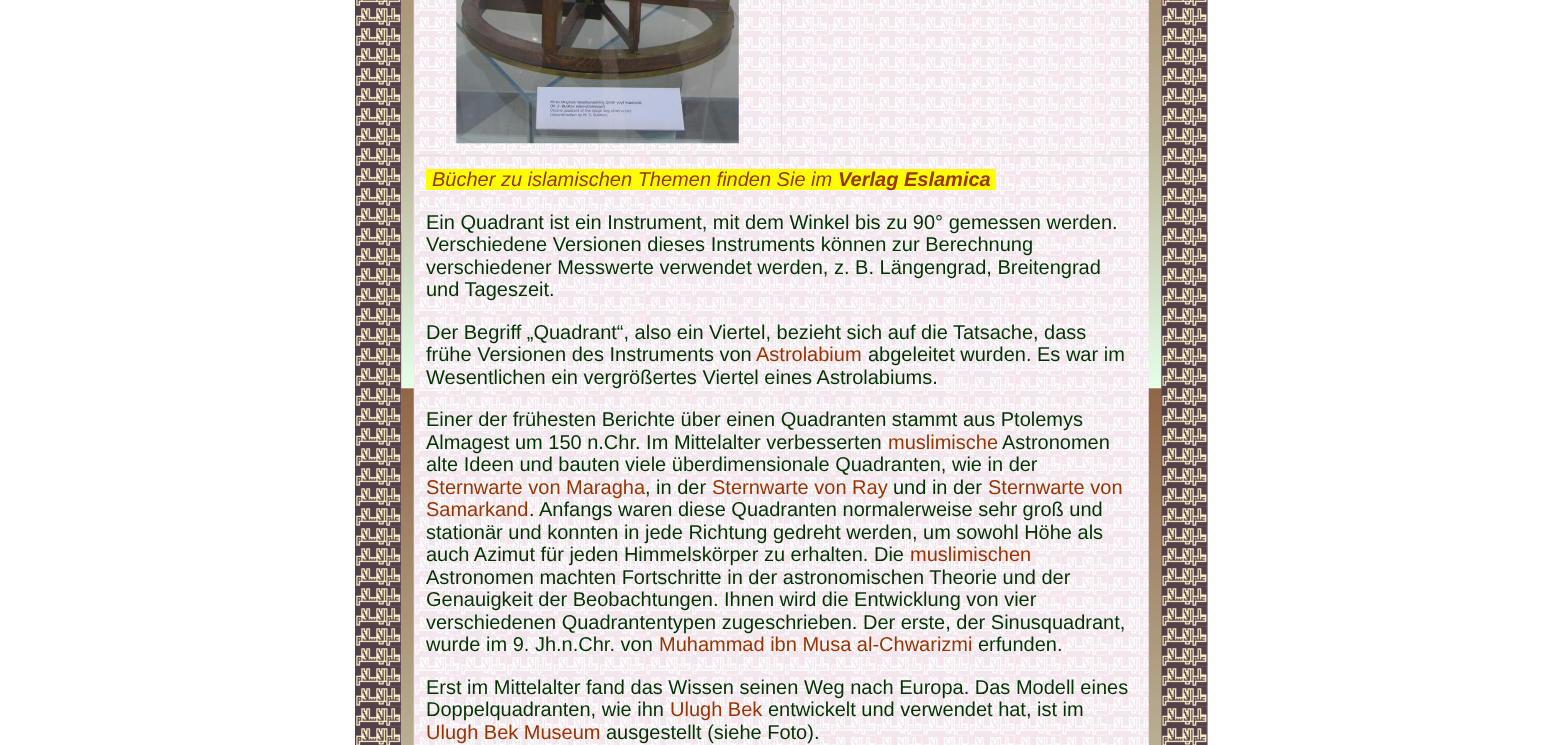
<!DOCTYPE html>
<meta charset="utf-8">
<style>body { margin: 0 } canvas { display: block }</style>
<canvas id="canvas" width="1562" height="745"></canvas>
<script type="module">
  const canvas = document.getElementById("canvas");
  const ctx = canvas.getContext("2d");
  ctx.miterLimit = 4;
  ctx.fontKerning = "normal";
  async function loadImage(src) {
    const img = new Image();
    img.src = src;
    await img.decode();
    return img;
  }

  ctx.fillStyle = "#ffffff";
  ctx.fillRect(0, 0, 1562, 745);
  ctx.drawImage(await loadImage("img1.png"), 401, 0, 807, 745);
  ctx.drawImage(await loadImage("img2.png"), 355, 0, 47, 745);
  ctx.drawImage(await loadImage("img3.png"), 1161, 0, 47, 745);
  ctx.drawImage(await loadImage("img4.png"), 401, 0, 761, 745);
  ctx.drawImage(await loadImage("img5.png"), 413, 0, 369, 156);
  ctx.drawImage(await loadImage("img6.png"), 456, 0, 283, 144);
  ctx.drawImage(await loadImage("img7.png"), 781, 0, 368, 156);
  ctx.drawImage(await loadImage("img8.png"), 413, 155, 736, 590);
  ctx.fillStyle = "#ffff00";
  ctx.fillRect(426, 169, 570, 21);
  ctx.font = "italic 20px Liberation Sans";
  ctx.fillStyle = "#993300";
  ctx.fillText("Bücher zu islamischen Themen finden Sie im", 432, 186);
  ctx.font = "italic bold 20px Liberation Sans";
  ctx.fillText("Verlag Eslamica", 838, 186);
  ctx.font = "20px Liberation Sans";
  ctx.fillStyle = "#003300";
  ctx.fillText("Ein Quadrant ist ein Instrument, mit dem Winkel bis zu 90° gemessen werden.", 426, 229);
  ctx.fillText("Verschiedene Versionen dieses Instruments können zur Berechnung", 426, 251);
  ctx.fillText("verschiedener Messwerte verwendet werden, z. B. Längengrad, Breitengrad", 426, 274);
  ctx.fillText("und Tageszeit.", 426, 296);
  ctx.fillText("Der Begriff „Quadrant“, also ein Viertel, bezieht sich auf die Tatsache, dass", 426, 339);
  ctx.fillText("frühe Versionen des Instruments von", 426, 361);
  ctx.fillStyle = "#993300";
  ctx.fillText("Astrolabium", 756, 361);
  ctx.fillStyle = "#003300";
  ctx.fillText("abgeleitet wurden. Es war im", 868, 361);
  ctx.fillText("Wesentlichen ein vergrößertes Viertel eines Astrolabiums.", 426, 384);
  ctx.fillText("Einer der frühesten Berichte über einen Quadranten stammt aus Ptolemys", 426, 426);
  ctx.fillText("Almagest um 150 n.Chr. Im Mittelalter verbesserten", 426, 449);
  ctx.fillStyle = "#993300";
  ctx.fillText("muslimische", 888, 449);
  ctx.fillStyle = "#003300";
  ctx.fillText("Astronomen", 1002, 449);
  ctx.fillText("alte Ideen und bauten viele überdimensionale Quadranten, wie in der", 426, 471);
  ctx.fillStyle = "#993300";
  ctx.fillText("Sternwarte von Maragha", 426, 494);
  ctx.fillStyle = "#003300";
  ctx.fillText(", in der", 645, 494);
  ctx.fillStyle = "#993300";
  ctx.fillText("Sternwarte von Ray", 712, 494);
  ctx.fillStyle = "#003300";
  ctx.fillText("und in der", 893, 494);
  ctx.fillStyle = "#993300";
  ctx.fillText("Sternwarte von", 988, 494);
  ctx.fillText("Samarkand", 426, 516);
  ctx.fillStyle = "#003300";
  ctx.fillText(". Anfangs waren diese Quadranten normalerweise sehr groß und", 529, 516);
  ctx.fillText("stationär und konnten in jede Richtung gedreht werden, um sowohl Höhe als", 426, 539);
  ctx.fillText("auch Azimut für jeden Himmelskörper zu erhalten. Die", 426, 561);
  ctx.fillStyle = "#993300";
  ctx.fillText("muslimischen", 910, 561);
  ctx.fillStyle = "#003300";
  ctx.fillText("Astronomen machten Fortschritte in der astronomischen Theorie und der", 426, 584);
  ctx.fillText("Genauigkeit der Beobachtungen. Ihnen wird die Entwicklung von vier", 426, 606);
  ctx.fillText("verschiedenen Quadrantentypen zugeschrieben. Der erste, der Sinusquadrant,", 426, 629);
  ctx.fillText("wurde im 9. Jh.n.Chr. von", 426, 651);
  ctx.fillStyle = "#993300";
  ctx.fillText("Muhammad ibn Musa al-Chwarizmi", 659, 651);
  ctx.fillStyle = "#003300";
  ctx.fillText("erfunden.", 978, 651);
  ctx.fillText("Erst im Mittelalter fand das Wissen seinen Weg nach Europa. Das Modell eines", 426, 694);
  ctx.fillText("Doppelquadranten, wie ihn", 426, 716);
  ctx.fillStyle = "#993300";
  ctx.fillText("Ulugh Bek", 670, 716);
  ctx.fillStyle = "#003300";
  ctx.fillText("entwickelt und verwendet hat, ist im", 768, 716);
  ctx.fillStyle = "#993300";
  ctx.fillText("Ulugh Bek Museum", 426, 739);
  ctx.fillStyle = "#003300";
  ctx.fillText("ausgestellt (siehe Foto).", 606, 739);
</script>
